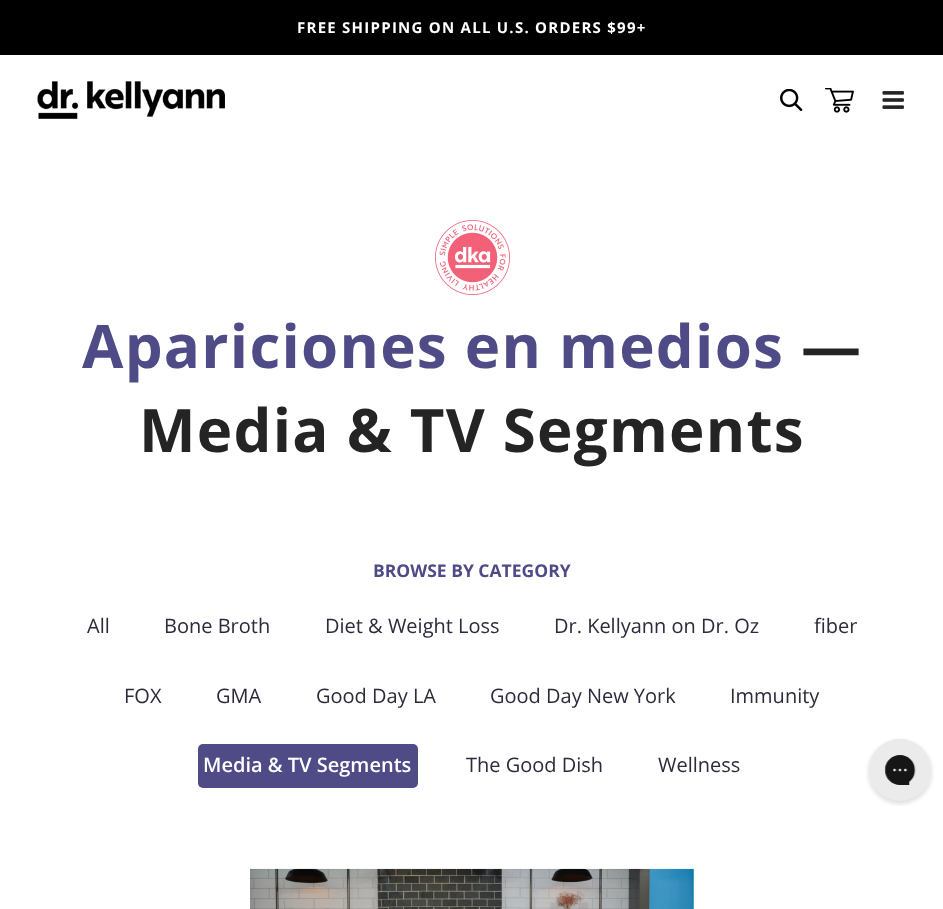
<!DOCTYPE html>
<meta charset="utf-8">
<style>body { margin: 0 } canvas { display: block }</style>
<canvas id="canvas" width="943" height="909"></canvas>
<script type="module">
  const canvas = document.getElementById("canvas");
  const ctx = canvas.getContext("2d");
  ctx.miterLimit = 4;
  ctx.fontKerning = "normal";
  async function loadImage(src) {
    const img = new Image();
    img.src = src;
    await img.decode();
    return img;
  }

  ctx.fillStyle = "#ffffff";
  ctx.fillRect(0, 0, 943, 909);
  ctx.fillStyle = "#000000";
  ctx.fillRect(0, 0, 943, 55);
  ctx.letterSpacing = "1.25px";
  ctx.font = "bold 15px Open Sans";
  ctx.fillStyle = "#ffffff";
  ctx.fillText("FREE SHIPPING ON ALL U.S. ORDERS $99+", 297, 33);
  ctx.drawImage(await loadImage("img1.png"), 37, 81, 188, 38);
  ctx.drawImage(await loadImage("img2.png"), 780, 89, 23, 22);
  ctx.drawImage(await loadImage("img3.png"), 825, 88, 29, 25);
  ctx.drawImage(await loadImage("img4.png"), 882, 91, 22, 18);
  ctx.drawImage(await loadImage("img5.png"), 435, 220, 75, 75);
  ctx.font = "bold 60px Open Sans";
  ctx.fillStyle = "#4e4b87";
  ctx.fillText("Apariciones en medios", 82, 368);
  ctx.fillStyle = "#242424";
  ctx.fillText("—", 801, 368);
  ctx.fillText("Media & TV Segments", 139, 452);
  ctx.letterSpacing = "0px";
  ctx.font = "bold 17.5px Open Sans";
  ctx.fillStyle = "#4e4b87";
  ctx.fillText("BROWSE BY CATEGORY", 373, 577);
  ctx.font = "20px Open Sans";
  ctx.fillStyle = "#2c2a3b";
  ctx.fillText("All", 87, 633);
  ctx.fillText("Bone Broth", 164, 633);
  ctx.fillText("Diet & Weight Loss", 325, 633);
  ctx.fillText("Dr. Kellyann on Dr. Oz", 554, 633);
  ctx.fillText("fiber", 814, 633);
  ctx.fillText("FOX", 124, 703);
  ctx.fillText("GMA", 216, 703);
  ctx.fillText("Good Day LA", 316, 703);
  ctx.fillText("Good Day New York", 490, 703);
  ctx.fillText("Immunity", 730, 703);
  ctx.fillStyle = "#4e4b87";
  ctx.beginPath();
  ctx.roundRect(198, 744, 220, 44, 5);
  ctx.fill();
  ctx.font = "600 20px Open Sans";
  ctx.fillStyle = "#ffffff";
  ctx.fillText("Media & TV Segments", 203, 772);
  ctx.font = "20px Open Sans";
  ctx.fillStyle = "#2c2a3b";
  ctx.fillText("The Good Dish", 466, 772);
  ctx.fillText("Wellness", 658, 772);
  ctx.drawImage(await loadImage("img6.png"), 250, 868, 444, 41);
  ctx.drawImage(await loadImage("img7.png"), 866, 738, 68, 68);
</script>
